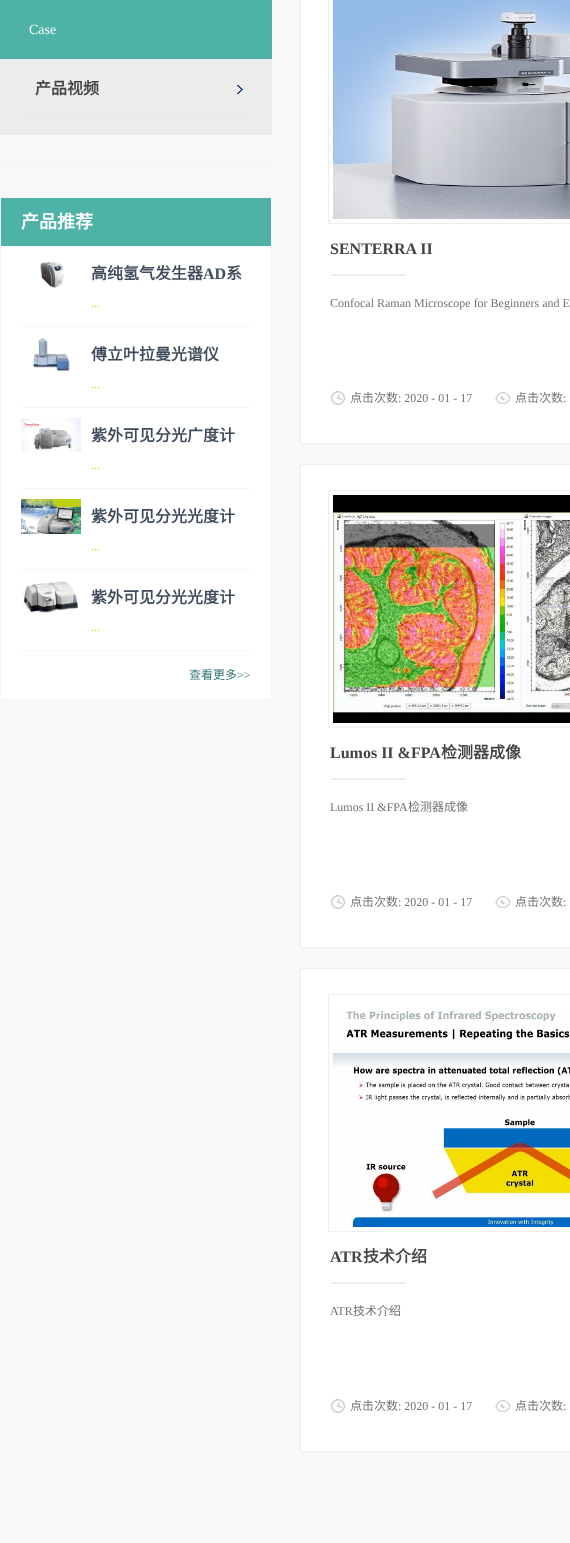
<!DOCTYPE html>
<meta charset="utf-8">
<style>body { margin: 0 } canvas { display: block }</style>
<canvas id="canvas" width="570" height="1543"></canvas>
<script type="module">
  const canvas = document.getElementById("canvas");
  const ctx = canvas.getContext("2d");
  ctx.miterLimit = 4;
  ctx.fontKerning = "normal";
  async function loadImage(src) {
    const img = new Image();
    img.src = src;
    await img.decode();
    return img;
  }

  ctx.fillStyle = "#f8f8f8";
  ctx.fillRect(0, 0, 570, 1543);
  ctx.fillStyle = "#4eb3a6";
  ctx.fillRect(0, 0, 272, 59);
  ctx.font = "14px Liberation Serif";
  ctx.fillStyle = "#ffffff";
  ctx.fillText("Case", 29, 34);
  ctx.fillStyle = "#ececec";
  ctx.fillRect(0, 59, 272, 76);
  ctx.drawImage(await loadImage("img1.png"), 237, 85, 6, 9);
  ctx.fillStyle = "#e6e6e6";
  ctx.fillRect(29, 114, 214, 1);
  ctx.font = "bold 16px Noto Sans CJK SC";
  ctx.fillStyle = "#434343";
  ctx.fillText("产品视频", 35, 94);
  ctx.fillStyle = "#f5f5f5";
  ctx.fillRect(0, 165, 272, 2);
  ctx.fillStyle = "#ffffff";
  ctx.fillRect(1, 246, 270, 453);
  ctx.strokeStyle = "#f5f5f5";
  ctx.strokeRect(0.5, 197.5, 271, 502);
  ctx.fillStyle = "#4eb3a6";
  ctx.fillRect(1, 198, 270, 48);
  ctx.font = "bold 18px Noto Sans CJK SC";
  ctx.fillStyle = "#ffffff";
  ctx.fillText("产品推荐", 21, 228);
  ctx.fillStyle = "#f7f7f7";
  ctx.fillRect(21, 326, 230, 1);
  ctx.drawImage(await loadImage("img2.png"), 40, 261, 24, 27);
  ctx.font = "bold 16px Noto Sans CJK SC";
  ctx.fillStyle = "#3f4b5c";
  ctx.fillText("高纯氢气发生器", 91, 279);
  ctx.font = "bold 16px Liberation Serif";
  ctx.fillText("AD", 203, 279);
  ctx.font = "bold 16px Noto Sans CJK SC";
  ctx.fillText("系", 226, 279);
  ctx.font = "12px Liberation Serif";
  ctx.fillStyle = "#f1cc1f";
  ctx.fillText("...", 91, 307);
  ctx.fillStyle = "#f7f7f7";
  ctx.fillRect(21, 407, 230, 1);
  ctx.drawImage(await loadImage("img3.png"), 33, 338, 37, 34);
  ctx.font = "bold 16px Noto Sans CJK SC";
  ctx.fillStyle = "#3f4b5c";
  ctx.fillText("傅立叶拉曼光谱仪", 91, 360);
  ctx.font = "12px Liberation Serif";
  ctx.fillStyle = "#f1cc1f";
  ctx.fillText("...", 91, 388);
  ctx.fillStyle = "#f7f7f7";
  ctx.fillRect(21, 488, 230, 1);
  ctx.drawImage(await loadImage("img4.png"), 21, 418, 60, 34);
  ctx.font = "bold 16px Noto Sans CJK SC";
  ctx.fillStyle = "#3f4b5c";
  ctx.fillText("紫外可见分光广度计", 91, 441);
  ctx.font = "12px Liberation Serif";
  ctx.fillStyle = "#f1cc1f";
  ctx.fillText("...", 91, 469);
  ctx.fillStyle = "#f7f7f7";
  ctx.fillRect(21, 569, 230, 1);
  ctx.drawImage(await loadImage("img5.png"), 21, 499, 60, 35);
  ctx.font = "bold 16px Noto Sans CJK SC";
  ctx.fillStyle = "#3f4b5c";
  ctx.fillText("紫外可见分光光度计", 91, 522);
  ctx.font = "12px Liberation Serif";
  ctx.fillStyle = "#f1cc1f";
  ctx.fillText("...", 91, 550);
  ctx.fillStyle = "#f7f7f7";
  ctx.fillRect(21, 650, 230, 1);
  ctx.drawImage(await loadImage("img6.png"), 22, 581, 56, 32);
  ctx.font = "bold 16px Noto Sans CJK SC";
  ctx.fillStyle = "#3f4b5c";
  ctx.fillText("紫外可见分光光度计", 91, 603);
  ctx.font = "12px Liberation Serif";
  ctx.fillStyle = "#f1cc1f";
  ctx.fillText("...", 91, 631);
  ctx.font = "12px Noto Sans CJK SC";
  ctx.fillStyle = "#347976";
  ctx.fillText("查看更多", 189, 679);
  ctx.font = "12px Liberation Serif";
  ctx.fillText(">>", 237, 679);
  ctx.fillStyle = "#ffffff";
  ctx.beginPath();
  ctx.rect(300.5, -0.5, 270, 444);
  ctx.fill();
  ctx.strokeStyle = "#eeeeee";
  ctx.stroke();
  ctx.strokeRect(328.5, -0.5, 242, 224);
  ctx.drawImage(await loadImage("img7.png"), 333, 0, 237, 219);
  ctx.font = "bold 16px Liberation Serif";
  ctx.fillStyle = "#434343";
  ctx.fillText("SENTERRA II", 330, 254);
  ctx.fillStyle = "#eeeeee";
  ctx.fillRect(331, 274, 75, 2);
  ctx.font = "12px Liberation Serif";
  ctx.fillStyle = "#737373";
  ctx.fillText("Confocal Raman Microscope for Beginners and E", 330, 307);
  ctx.drawImage(await loadImage("img8.png"), 331, 391, 14, 14);
  ctx.font = "12px Noto Sans CJK SC";
  ctx.fillText("点击次数", 350, 402);
  ctx.font = "12px Liberation Serif";
  ctx.fillText(": 2020 - 01 - 17", 398, 402);
  ctx.drawImage(await loadImage("img9.png"), 495, 392, 16, 12);
  ctx.font = "12px Noto Sans CJK SC";
  ctx.fillText("点击次数", 515, 402);
  ctx.font = "12px Liberation Serif";
  ctx.fillText(":", 563, 402);
  ctx.fillStyle = "#ffffff";
  ctx.beginPath();
  ctx.rect(300.5, 464.5, 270, 483);
  ctx.fill();
  ctx.stroke();
  ctx.strokeRect(328.5, 490.5, 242, 237);
  ctx.drawImage(await loadImage("img10.png"), 333, 495, 237, 228);
  ctx.font = "bold 16px Liberation Serif";
  ctx.fillStyle = "#434343";
  ctx.fillText("Lumos II &FPA", 330, 758);
  ctx.font = "bold 16px Noto Sans CJK SC";
  ctx.fillText("检测器成像", 441, 758);
  ctx.fillStyle = "#eeeeee";
  ctx.fillRect(331, 778, 75, 2);
  ctx.font = "12px Liberation Serif";
  ctx.fillStyle = "#737373";
  ctx.fillText("Lumos II &FPA", 330, 811);
  ctx.font = "12px Noto Sans CJK SC";
  ctx.fillText("检测器成像", 408, 811);
  ctx.drawImage(await loadImage("img8.png"), 331, 895, 14, 14);
  ctx.fillText("点击次数", 350, 906);
  ctx.font = "12px Liberation Serif";
  ctx.fillText(": 2020 - 01 - 17", 398, 906);
  ctx.drawImage(await loadImage("img9.png"), 495, 896, 16, 12);
  ctx.font = "12px Noto Sans CJK SC";
  ctx.fillText("点击次数", 515, 906);
  ctx.font = "12px Liberation Serif";
  ctx.fillText(":", 563, 906);
  ctx.fillStyle = "#ffffff";
  ctx.beginPath();
  ctx.rect(300.5, 968.5, 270, 483);
  ctx.fill();
  ctx.stroke();
  ctx.strokeRect(328.5, 994.5, 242, 237);
  ctx.drawImage(await loadImage("img11.png"), 333, 1011, 237, 216);
  ctx.font = "bold 16px Liberation Serif";
  ctx.fillStyle = "#434343";
  ctx.fillText("ATR", 330, 1262);
  ctx.font = "bold 16px Noto Sans CJK SC";
  ctx.fillText("技术介绍", 363, 1262);
  ctx.fillStyle = "#eeeeee";
  ctx.fillRect(331, 1282, 75, 2);
  ctx.font = "12px Liberation Serif";
  ctx.fillStyle = "#737373";
  ctx.fillText("ATR", 330, 1315);
  ctx.font = "12px Noto Sans CJK SC";
  ctx.fillText("技术介绍", 353, 1315);
  ctx.drawImage(await loadImage("img8.png"), 331, 1399, 14, 14);
  ctx.fillText("点击次数", 350, 1410);
  ctx.font = "12px Liberation Serif";
  ctx.fillText(": 2020 - 01 - 17", 398, 1410);
  ctx.drawImage(await loadImage("img9.png"), 495, 1400, 16, 12);
  ctx.font = "12px Noto Sans CJK SC";
  ctx.fillText("点击次数", 515, 1410);
  ctx.font = "12px Liberation Serif";
  ctx.fillText(":", 563, 1410);
</script>
